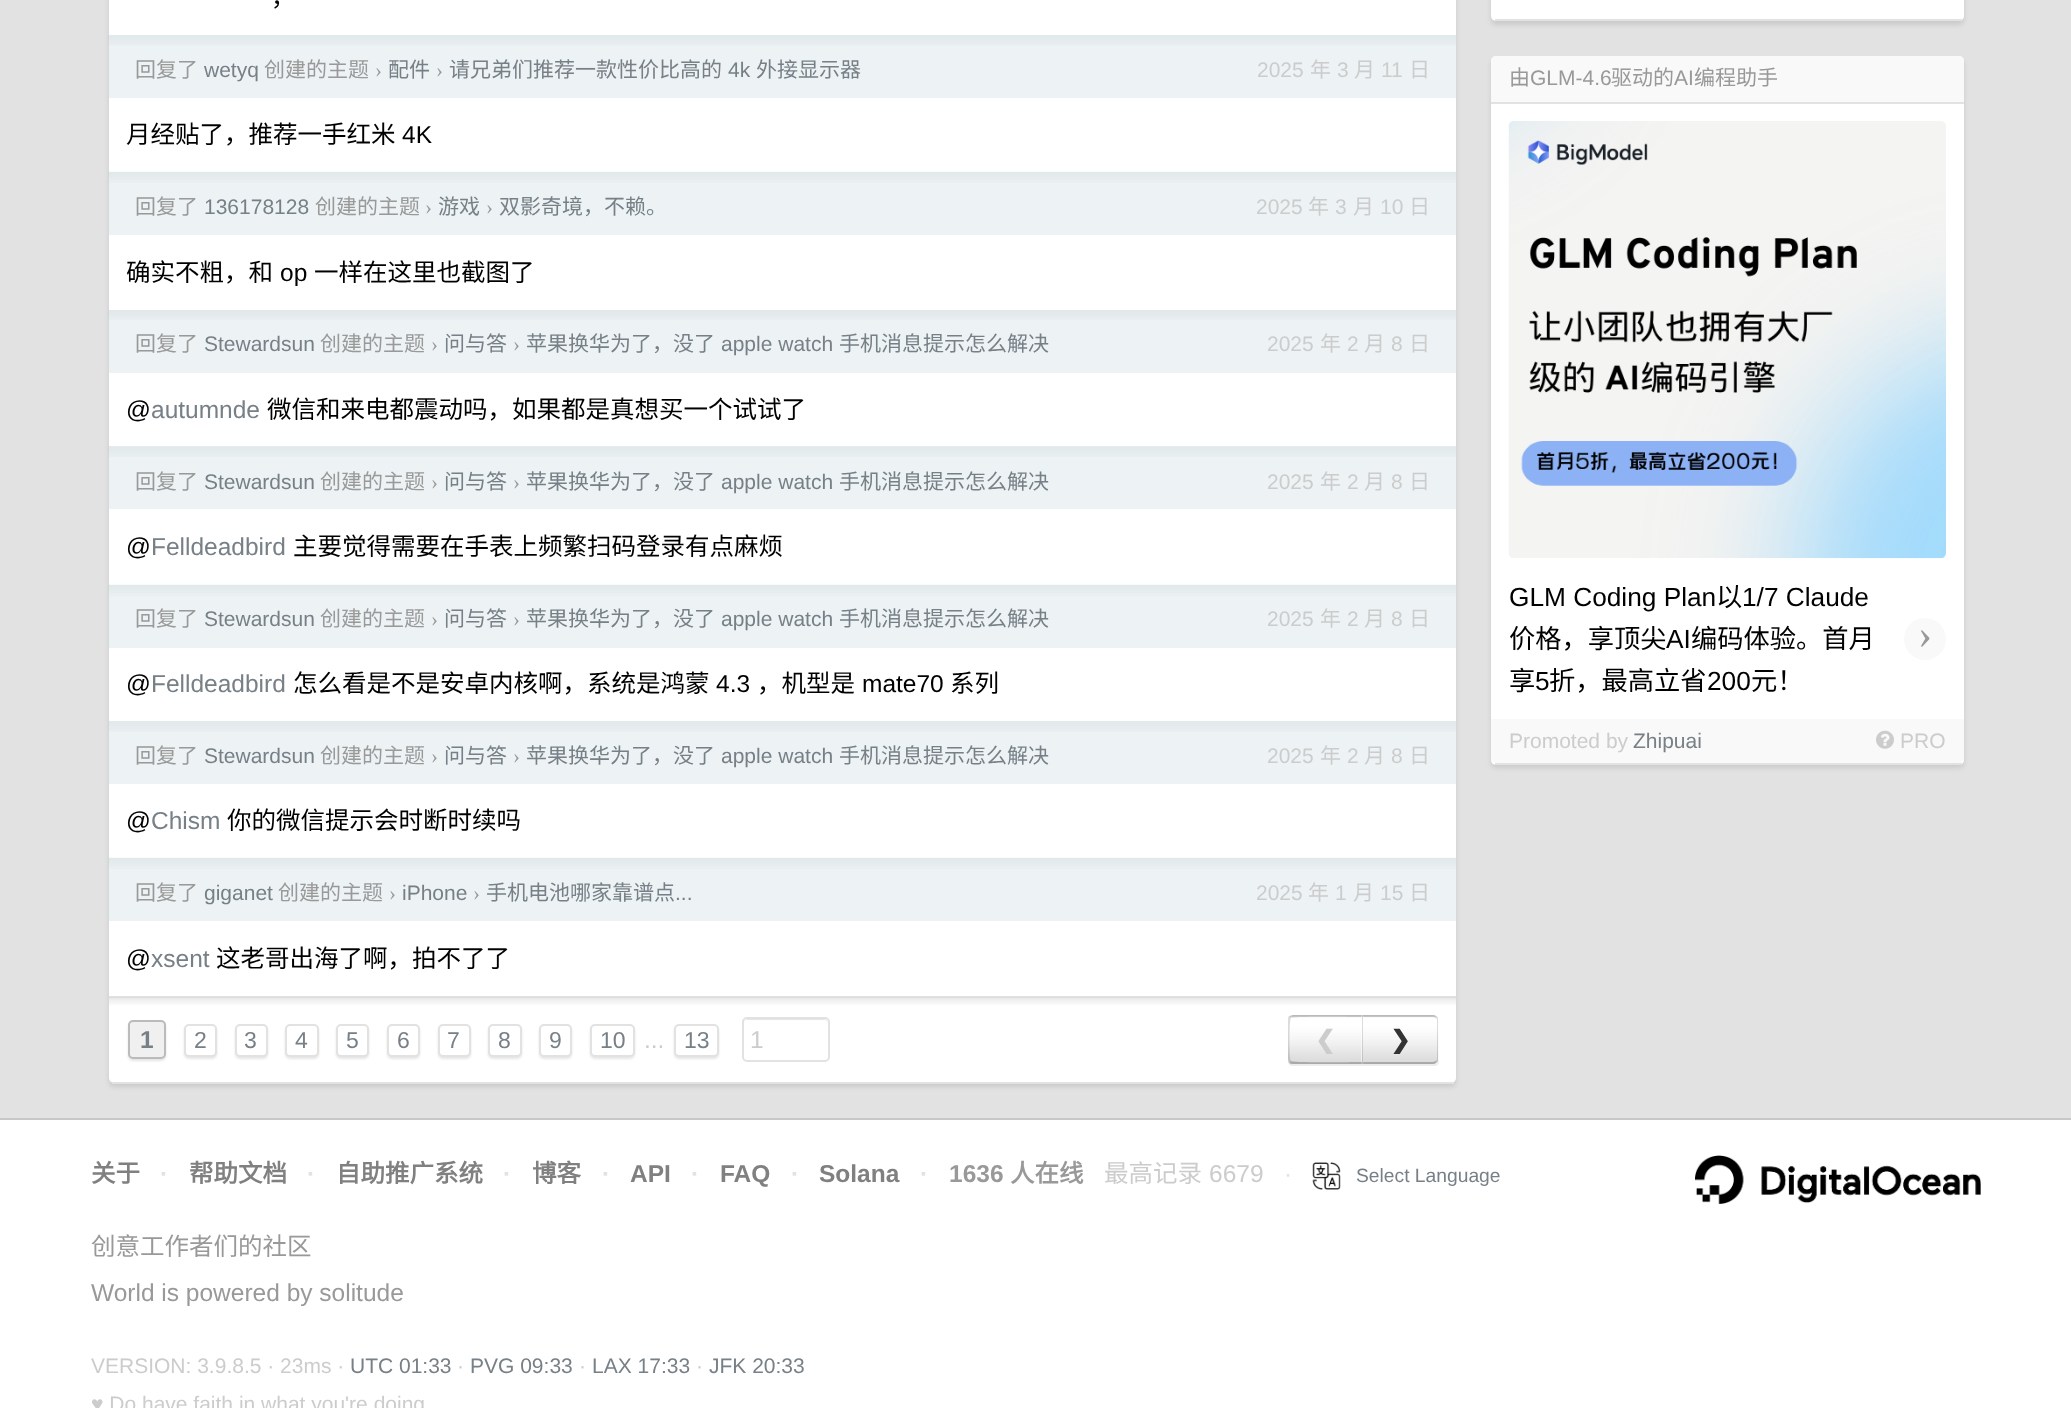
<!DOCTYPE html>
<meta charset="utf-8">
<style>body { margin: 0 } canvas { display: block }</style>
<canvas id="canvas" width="2071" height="1408"></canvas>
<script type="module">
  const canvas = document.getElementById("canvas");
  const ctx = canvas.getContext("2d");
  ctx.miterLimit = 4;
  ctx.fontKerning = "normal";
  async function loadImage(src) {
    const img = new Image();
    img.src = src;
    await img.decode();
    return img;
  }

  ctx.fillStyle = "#ffffff";
  ctx.fillRect(0, 0, 2071, 1408);
  ctx.fillStyle = "#e2e2e2";
  ctx.fillRect(0, 0, 2071, 1118);
  ctx.fillStyle = "rgba(0, 0, 0, 0.1)";
  ctx.filter = "blur(2.5px)";
  ctx.beginPath();
  ctx.roundRect(109, -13, 1347, 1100, 5);
  ctx.fill();
  ctx.filter = "none";
  ctx.fillStyle = "#ffffff";
  ctx.beginPath();
  ctx.roundRect(109, -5, 1347, 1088, 5);
  ctx.fill();
  ctx.fillStyle = "#e2e2e2";
  ctx.fillRect(112, 1082, 1342, 2);
  ctx.font = "24.5px Noto Sans CJK SC";
  ctx.fillStyle = "#000000";
  ctx.fillText("，", 271, 6);
  ctx.fillStyle = "#edf3f5";
  ctx.fillRect(109, 35, 1347, 63);
  ctx.drawImage(await loadImage("img1.png"), 108, 35, 1348, 11);
  ctx.font = "21px Noto Sans CJK SC";
  ctx.fillStyle = "#999999";
  ctx.fillText("回复了", 135, 77);
  ctx.font = "21px Liberation Sans";
  ctx.fillStyle = "#778087";
  ctx.fillText("wetyq", 204, 77);
  ctx.font = "21px Noto Sans CJK SC";
  ctx.fillStyle = "#999999";
  ctx.fillText("创建的主题", 264, 77);
  ctx.font = "21px Liberation Serif";
  ctx.fillText("›", 375, 77);
  ctx.font = "21px Noto Sans CJK SC";
  ctx.fillStyle = "#778087";
  ctx.fillText("配件", 388, 77);
  ctx.font = "21px Liberation Serif";
  ctx.fillStyle = "#999999";
  ctx.fillText("›", 436, 77);
  ctx.font = "21px Noto Sans CJK SC";
  ctx.fillStyle = "#778087";
  ctx.fillText("请兄弟们推荐一款性价比高的", 449, 77);
  ctx.font = "21px Liberation Sans";
  ctx.fillText("4k", 728, 77);
  ctx.font = "21px Noto Sans CJK SC";
  ctx.fillText("外接显示器", 756, 77);
  ctx.font = "21px Liberation Sans";
  ctx.fillStyle = "#cccccc";
  ctx.fillText("2025", 1257, 77);
  ctx.font = "21px Noto Sans CJK SC";
  ctx.fillText("年", 1310, 77);
  ctx.font = "21px Liberation Sans";
  ctx.fillText("3", 1337, 77);
  ctx.font = "21px Noto Sans CJK SC";
  ctx.fillText("月", 1354, 77);
  ctx.font = "21px Liberation Sans";
  ctx.fillText("11", 1381, 77);
  ctx.font = "21px Noto Sans CJK SC";
  ctx.fillText("日", 1409, 77);
  ctx.font = "24.5px Noto Sans CJK SC";
  ctx.fillStyle = "#000000";
  ctx.fillText("月经贴了，推荐一手红米", 126, 143);
  ctx.font = "24.5px Liberation Sans";
  ctx.fillText("4K", 402, 143);
  ctx.fillStyle = "#edf3f5";
  ctx.fillRect(109, 172, 1347, 63);
  ctx.drawImage(await loadImage("img2.png"), 108, 171, 1348, 12);
  ctx.font = "21px Noto Sans CJK SC";
  ctx.fillStyle = "#999999";
  ctx.fillText("回复了", 135, 214);
  ctx.font = "21px Liberation Sans";
  ctx.fillStyle = "#778087";
  ctx.fillText("136178128", 204, 214);
  ctx.font = "21px Noto Sans CJK SC";
  ctx.fillStyle = "#999999";
  ctx.fillText("创建的主题", 315, 214);
  ctx.font = "21px Liberation Serif";
  ctx.fillText("›", 425, 214);
  ctx.font = "21px Noto Sans CJK SC";
  ctx.fillStyle = "#778087";
  ctx.fillText("游戏", 438, 214);
  ctx.font = "21px Liberation Serif";
  ctx.fillStyle = "#999999";
  ctx.fillText("›", 486, 214);
  ctx.font = "21px Noto Sans CJK SC";
  ctx.fillStyle = "#778087";
  ctx.fillText("双影奇境，不赖。", 499, 214);
  ctx.font = "21px Liberation Sans";
  ctx.fillStyle = "#cccccc";
  ctx.fillText("2025", 1256, 214);
  ctx.font = "21px Noto Sans CJK SC";
  ctx.fillText("年", 1308, 214);
  ctx.font = "21px Liberation Sans";
  ctx.fillText("3", 1335, 214);
  ctx.font = "21px Noto Sans CJK SC";
  ctx.fillText("月", 1353, 214);
  ctx.font = "21px Liberation Sans";
  ctx.fillText("10", 1380, 214);
  ctx.font = "21px Noto Sans CJK SC";
  ctx.fillText("日", 1409, 214);
  ctx.font = "24.5px Noto Sans CJK SC";
  ctx.fillStyle = "#000000";
  ctx.fillText("确实不粗，和", 126, 281);
  ctx.font = "24.5px Liberation Sans";
  ctx.fillText("op", 280, 281);
  ctx.font = "24.5px Noto Sans CJK SC";
  ctx.fillText("一样在这里也截图了", 314, 281);
  ctx.fillStyle = "#edf3f5";
  ctx.fillRect(109, 310, 1347, 63);
  ctx.drawImage(await loadImage("img3.png"), 108, 310, 1348, 10);
  ctx.font = "21px Noto Sans CJK SC";
  ctx.fillStyle = "#999999";
  ctx.fillText("回复了", 135, 351);
  ctx.font = "21px Liberation Sans";
  ctx.fillStyle = "#778087";
  ctx.fillText("Stewardsun", 204, 351);
  ctx.font = "21px Noto Sans CJK SC";
  ctx.fillStyle = "#999999";
  ctx.fillText("创建的主题", 320, 351);
  ctx.font = "21px Liberation Serif";
  ctx.fillText("›", 431, 351);
  ctx.font = "21px Noto Sans CJK SC";
  ctx.fillStyle = "#778087";
  ctx.fillText("问与答", 444, 351);
  ctx.font = "21px Liberation Serif";
  ctx.fillStyle = "#999999";
  ctx.fillText("›", 513, 351);
  ctx.font = "21px Noto Sans CJK SC";
  ctx.fillStyle = "#778087";
  ctx.fillText("苹果换华为了，没了", 526, 351);
  ctx.font = "21px Liberation Sans";
  ctx.fillText("apple watch", 721, 351);
  ctx.font = "21px Noto Sans CJK SC";
  ctx.fillText("手机消息提示怎么解决", 839, 351);
  ctx.font = "21px Liberation Sans";
  ctx.fillStyle = "#cccccc";
  ctx.fillText("2025", 1267, 351);
  ctx.font = "21px Noto Sans CJK SC";
  ctx.fillText("年", 1320, 351);
  ctx.font = "21px Liberation Sans";
  ctx.fillText("2", 1347, 351);
  ctx.font = "21px Noto Sans CJK SC";
  ctx.fillText("月", 1364, 351);
  ctx.font = "21px Liberation Sans";
  ctx.fillText("8", 1391, 351);
  ctx.font = "21px Noto Sans CJK SC";
  ctx.fillText("日", 1409, 351);
  ctx.font = "24.5px Liberation Sans";
  ctx.fillStyle = "#000000";
  ctx.fillText("@", 126, 418);
  ctx.fillStyle = "#778087";
  ctx.fillText("autumnde", 151, 418);
  ctx.font = "24.5px Noto Sans CJK SC";
  ctx.fillStyle = "#000000";
  ctx.fillText("微信和来电都震动吗，如果都是真想买一个试试了", 267, 418);
  ctx.fillStyle = "#edf3f5";
  ctx.fillRect(109, 446, 1347, 63);
  ctx.drawImage(await loadImage("img4.png"), 108, 446, 1348, 11);
  ctx.font = "21px Noto Sans CJK SC";
  ctx.fillStyle = "#999999";
  ctx.fillText("回复了", 135, 489);
  ctx.font = "21px Liberation Sans";
  ctx.fillStyle = "#778087";
  ctx.fillText("Stewardsun", 204, 489);
  ctx.font = "21px Noto Sans CJK SC";
  ctx.fillStyle = "#999999";
  ctx.fillText("创建的主题", 320, 489);
  ctx.font = "21px Liberation Serif";
  ctx.fillText("›", 431, 489);
  ctx.font = "21px Noto Sans CJK SC";
  ctx.fillStyle = "#778087";
  ctx.fillText("问与答", 444, 489);
  ctx.font = "21px Liberation Serif";
  ctx.fillStyle = "#999999";
  ctx.fillText("›", 513, 489);
  ctx.font = "21px Noto Sans CJK SC";
  ctx.fillStyle = "#778087";
  ctx.fillText("苹果换华为了，没了", 526, 489);
  ctx.font = "21px Liberation Sans";
  ctx.fillText("apple watch", 721, 489);
  ctx.font = "21px Noto Sans CJK SC";
  ctx.fillText("手机消息提示怎么解决", 839, 489);
  ctx.font = "21px Liberation Sans";
  ctx.fillStyle = "#cccccc";
  ctx.fillText("2025", 1267, 489);
  ctx.font = "21px Noto Sans CJK SC";
  ctx.fillText("年", 1320, 489);
  ctx.font = "21px Liberation Sans";
  ctx.fillText("2", 1347, 489);
  ctx.font = "21px Noto Sans CJK SC";
  ctx.fillText("月", 1364, 489);
  ctx.font = "21px Liberation Sans";
  ctx.fillText("8", 1391, 489);
  ctx.font = "21px Noto Sans CJK SC";
  ctx.fillText("日", 1409, 489);
  ctx.font = "24.5px Liberation Sans";
  ctx.fillStyle = "#000000";
  ctx.fillText("@", 126, 555);
  ctx.fillStyle = "#778087";
  ctx.fillText("Felldeadbird", 151, 555);
  ctx.font = "24.5px Noto Sans CJK SC";
  ctx.fillStyle = "#000000";
  ctx.fillText("主要觉得需要在手表上频繁扫码登录有点麻烦", 293, 555);
  ctx.fillStyle = "#edf3f5";
  ctx.fillRect(109, 585, 1347, 63);
  ctx.drawImage(await loadImage("img2.png"), 108, 584, 1348, 12);
  ctx.font = "21px Noto Sans CJK SC";
  ctx.fillStyle = "#999999";
  ctx.fillText("回复了", 135, 626);
  ctx.font = "21px Liberation Sans";
  ctx.fillStyle = "#778087";
  ctx.fillText("Stewardsun", 204, 626);
  ctx.font = "21px Noto Sans CJK SC";
  ctx.fillStyle = "#999999";
  ctx.fillText("创建的主题", 320, 626);
  ctx.font = "21px Liberation Serif";
  ctx.fillText("›", 431, 626);
  ctx.font = "21px Noto Sans CJK SC";
  ctx.fillStyle = "#778087";
  ctx.fillText("问与答", 444, 626);
  ctx.font = "21px Liberation Serif";
  ctx.fillStyle = "#999999";
  ctx.fillText("›", 513, 626);
  ctx.font = "21px Noto Sans CJK SC";
  ctx.fillStyle = "#778087";
  ctx.fillText("苹果换华为了，没了", 526, 626);
  ctx.font = "21px Liberation Sans";
  ctx.fillText("apple watch", 721, 626);
  ctx.font = "21px Noto Sans CJK SC";
  ctx.fillText("手机消息提示怎么解决", 839, 626);
  ctx.font = "21px Liberation Sans";
  ctx.fillStyle = "#cccccc";
  ctx.fillText("2025", 1267, 626);
  ctx.font = "21px Noto Sans CJK SC";
  ctx.fillText("年", 1320, 626);
  ctx.font = "21px Liberation Sans";
  ctx.fillText("2", 1347, 626);
  ctx.font = "21px Noto Sans CJK SC";
  ctx.fillText("月", 1364, 626);
  ctx.font = "21px Liberation Sans";
  ctx.fillText("8", 1391, 626);
  ctx.font = "21px Noto Sans CJK SC";
  ctx.fillText("日", 1409, 626);
  ctx.font = "24.5px Liberation Sans";
  ctx.fillStyle = "#000000";
  ctx.fillText("@", 126, 692);
  ctx.fillStyle = "#778087";
  ctx.fillText("Felldeadbird", 151, 692);
  ctx.font = "24.5px Noto Sans CJK SC";
  ctx.fillStyle = "#000000";
  ctx.fillText("怎么看是不是安卓内核啊，系统是鸿蒙", 293, 692);
  ctx.font = "24.5px Liberation Sans";
  ctx.fillText("4.3", 716, 692);
  ctx.font = "24.5px Noto Sans CJK SC";
  ctx.fillText("，机型是", 757, 692);
  ctx.font = "24.5px Liberation Sans";
  ctx.fillText("mate70", 862, 692);
  ctx.font = "24.5px Noto Sans CJK SC";
  ctx.fillText("系列", 950, 692);
  ctx.fillStyle = "#edf3f5";
  ctx.fillRect(109, 721, 1347, 63);
  ctx.drawImage(await loadImage("img1.png"), 108, 721, 1348, 11);
  ctx.font = "21px Noto Sans CJK SC";
  ctx.fillStyle = "#999999";
  ctx.fillText("回复了", 135, 763);
  ctx.font = "21px Liberation Sans";
  ctx.fillStyle = "#778087";
  ctx.fillText("Stewardsun", 204, 763);
  ctx.font = "21px Noto Sans CJK SC";
  ctx.fillStyle = "#999999";
  ctx.fillText("创建的主题", 320, 763);
  ctx.font = "21px Liberation Serif";
  ctx.fillText("›", 431, 763);
  ctx.font = "21px Noto Sans CJK SC";
  ctx.fillStyle = "#778087";
  ctx.fillText("问与答", 444, 763);
  ctx.font = "21px Liberation Serif";
  ctx.fillStyle = "#999999";
  ctx.fillText("›", 513, 763);
  ctx.font = "21px Noto Sans CJK SC";
  ctx.fillStyle = "#778087";
  ctx.fillText("苹果换华为了，没了", 526, 763);
  ctx.font = "21px Liberation Sans";
  ctx.fillText("apple watch", 721, 763);
  ctx.font = "21px Noto Sans CJK SC";
  ctx.fillText("手机消息提示怎么解决", 839, 763);
  ctx.font = "21px Liberation Sans";
  ctx.fillStyle = "#cccccc";
  ctx.fillText("2025", 1267, 763);
  ctx.font = "21px Noto Sans CJK SC";
  ctx.fillText("年", 1320, 763);
  ctx.font = "21px Liberation Sans";
  ctx.fillText("2", 1347, 763);
  ctx.font = "21px Noto Sans CJK SC";
  ctx.fillText("月", 1364, 763);
  ctx.font = "21px Liberation Sans";
  ctx.fillText("8", 1391, 763);
  ctx.font = "21px Noto Sans CJK SC";
  ctx.fillText("日", 1409, 763);
  ctx.font = "24.5px Liberation Sans";
  ctx.fillStyle = "#000000";
  ctx.fillText("@", 126, 829);
  ctx.fillStyle = "#778087";
  ctx.fillText("Chism", 151, 829);
  ctx.font = "24.5px Noto Sans CJK SC";
  ctx.fillStyle = "#000000";
  ctx.fillText("你的微信提示会时断时续吗", 227, 829);
  ctx.fillStyle = "#edf3f5";
  ctx.fillRect(109, 858, 1347, 63);
  ctx.drawImage(await loadImage("img5.png"), 108, 857, 1348, 12);
  ctx.font = "21px Noto Sans CJK SC";
  ctx.fillStyle = "#999999";
  ctx.fillText("回复了", 135, 900);
  ctx.font = "21px Liberation Sans";
  ctx.fillStyle = "#778087";
  ctx.fillText("giganet", 204, 900);
  ctx.font = "21px Noto Sans CJK SC";
  ctx.fillStyle = "#999999";
  ctx.fillText("创建的主题", 278, 900);
  ctx.font = "21px Liberation Serif";
  ctx.fillText("›", 389, 900);
  ctx.font = "21px Liberation Sans";
  ctx.fillStyle = "#778087";
  ctx.fillText("iPhone", 402, 900);
  ctx.font = "21px Liberation Serif";
  ctx.fillStyle = "#999999";
  ctx.fillText("›", 473, 900);
  ctx.font = "21px Noto Sans CJK SC";
  ctx.fillStyle = "#778087";
  ctx.fillText("手机电池哪家靠谱点", 486, 900);
  ctx.font = "21px Liberation Sans";
  ctx.fillText("...", 675, 900);
  ctx.fillStyle = "#cccccc";
  ctx.fillText("2025", 1256, 900);
  ctx.font = "21px Noto Sans CJK SC";
  ctx.fillText("年", 1308, 900);
  ctx.font = "21px Liberation Sans";
  ctx.fillText("1", 1335, 900);
  ctx.font = "21px Noto Sans CJK SC";
  ctx.fillText("月", 1353, 900);
  ctx.font = "21px Liberation Sans";
  ctx.fillText("15", 1380, 900);
  ctx.font = "21px Noto Sans CJK SC";
  ctx.fillText("日", 1409, 900);
  ctx.fillStyle = "#e2e2e2";
  ctx.fillRect(109, 996, 1347, 2);
  ctx.font = "24.5px Liberation Sans";
  ctx.fillStyle = "#000000";
  ctx.fillText("@", 126, 967);
  ctx.fillStyle = "#778087";
  ctx.fillText("xsent", 151, 967);
  ctx.font = "24.5px Noto Sans CJK SC";
  ctx.fillStyle = "#000000";
  ctx.fillText("这老哥出海了啊，拍不了了", 216, 967);
  ctx.drawImage(await loadImage("img6.png"), 109, 997, 1347, 8);
  ctx.fillStyle = "rgba(0, 0, 0, 0.1)";
  ctx.filter = "blur(1px)";
  ctx.beginPath();
  ctx.roundRect(128, 1022, 38, 39, 5);
  ctx.fill();
  ctx.filter = "none";
  ctx.fillStyle = "#f0f0f0";
  ctx.beginPath();
  ctx.roundRect(129, 1021, 36, 37, 4);
  ctx.fill();
  ctx.strokeStyle = "#bbbbbb";
  ctx.lineWidth = 2;
  ctx.stroke();
  ctx.font = "bold 24.5px Liberation Sans";
  ctx.fillStyle = "#778087";
  ctx.fillText("1", 140, 1048);
  ctx.fillStyle = "rgba(0, 0, 0, 0.1)";
  ctx.filter = "blur(1px)";
  ctx.beginPath();
  ctx.roundRect(184, 1026, 33, 33, 5);
  ctx.fill();
  ctx.filter = "none";
  ctx.fillStyle = "#ffffff";
  ctx.beginPath();
  ctx.roundRect(185, 1025, 31, 31, 4);
  ctx.fill();
  ctx.strokeStyle = "#e2e2e2";
  ctx.stroke();
  ctx.font = "23px Liberation Sans";
  ctx.fillStyle = "#778087";
  ctx.fillText("2", 194, 1048);
  ctx.fillStyle = "rgba(0, 0, 0, 0.1)";
  ctx.filter = "blur(1px)";
  ctx.beginPath();
  ctx.roundRect(235, 1026, 33, 33, 5);
  ctx.fill();
  ctx.filter = "none";
  ctx.fillStyle = "#ffffff";
  ctx.beginPath();
  ctx.roundRect(236, 1025, 31, 31, 4);
  ctx.fill();
  ctx.stroke();
  ctx.fillStyle = "#778087";
  ctx.fillText("3", 244, 1048);
  ctx.fillStyle = "rgba(0, 0, 0, 0.1)";
  ctx.filter = "blur(1px)";
  ctx.beginPath();
  ctx.roundRect(285, 1026, 34, 33, 5);
  ctx.fill();
  ctx.filter = "none";
  ctx.fillStyle = "#ffffff";
  ctx.beginPath();
  ctx.roundRect(286, 1025, 32, 31, 4);
  ctx.fill();
  ctx.stroke();
  ctx.fillStyle = "#778087";
  ctx.fillText("4", 295, 1048);
  ctx.fillStyle = "rgba(0, 0, 0, 0.1)";
  ctx.filter = "blur(1px)";
  ctx.beginPath();
  ctx.roundRect(336, 1026, 33, 33, 5);
  ctx.fill();
  ctx.filter = "none";
  ctx.fillStyle = "#ffffff";
  ctx.beginPath();
  ctx.roundRect(337, 1025, 31, 31, 4);
  ctx.fill();
  ctx.stroke();
  ctx.fillStyle = "#778087";
  ctx.fillText("5", 346, 1048);
  ctx.fillStyle = "rgba(0, 0, 0, 0.1)";
  ctx.filter = "blur(1px)";
  ctx.beginPath();
  ctx.roundRect(387, 1026, 33, 33, 5);
  ctx.fill();
  ctx.filter = "none";
  ctx.fillStyle = "#ffffff";
  ctx.beginPath();
  ctx.roundRect(388, 1025, 31, 31, 4);
  ctx.fill();
  ctx.stroke();
  ctx.fillStyle = "#778087";
  ctx.fillText("6", 397, 1048);
  ctx.fillStyle = "rgba(0, 0, 0, 0.1)";
  ctx.filter = "blur(1px)";
  ctx.beginPath();
  ctx.roundRect(438, 1026, 33, 33, 5);
  ctx.fill();
  ctx.filter = "none";
  ctx.fillStyle = "#ffffff";
  ctx.beginPath();
  ctx.roundRect(439, 1025, 31, 31, 4);
  ctx.fill();
  ctx.stroke();
  ctx.fillStyle = "#778087";
  ctx.fillText("7", 447, 1048);
  ctx.fillStyle = "rgba(0, 0, 0, 0.1)";
  ctx.filter = "blur(1px)";
  ctx.beginPath();
  ctx.roundRect(488, 1026, 34, 33, 5);
  ctx.fill();
  ctx.filter = "none";
  ctx.fillStyle = "#ffffff";
  ctx.beginPath();
  ctx.roundRect(489, 1025, 32, 31, 4);
  ctx.fill();
  ctx.stroke();
  ctx.fillStyle = "#778087";
  ctx.fillText("8", 498, 1048);
  ctx.fillStyle = "rgba(0, 0, 0, 0.1)";
  ctx.filter = "blur(1px)";
  ctx.beginPath();
  ctx.roundRect(539, 1026, 33, 33, 5);
  ctx.fill();
  ctx.filter = "none";
  ctx.fillStyle = "#ffffff";
  ctx.beginPath();
  ctx.roundRect(540, 1025, 31, 31, 4);
  ctx.fill();
  ctx.stroke();
  ctx.fillStyle = "#778087";
  ctx.fillText("9", 549, 1048);
  ctx.fillStyle = "rgba(0, 0, 0, 0.1)";
  ctx.filter = "blur(1px)";
  ctx.beginPath();
  ctx.roundRect(590, 1026, 45, 33, 5);
  ctx.fill();
  ctx.filter = "none";
  ctx.fillStyle = "#ffffff";
  ctx.beginPath();
  ctx.roundRect(591, 1025, 43, 31, 4);
  ctx.fill();
  ctx.stroke();
  ctx.fillStyle = "#778087";
  ctx.fillText("10", 600, 1048);
  ctx.font = "24.5px Liberation Sans";
  ctx.fillStyle = "#cccccc";
  ctx.fillText("...", 644, 1048);
  ctx.fillStyle = "rgba(0, 0, 0, 0.1)";
  ctx.filter = "blur(1px)";
  ctx.beginPath();
  ctx.roundRect(674, 1026, 45, 33, 5);
  ctx.fill();
  ctx.filter = "none";
  ctx.fillStyle = "#ffffff";
  ctx.beginPath();
  ctx.roundRect(675, 1025, 43, 31, 4);
  ctx.fill();
  ctx.stroke();
  ctx.font = "23px Liberation Sans";
  ctx.fillStyle = "#778087";
  ctx.fillText("13", 684, 1048);
  ctx.fillStyle = "#e6e6e6";
  ctx.beginPath();
  ctx.moveTo(747, 1020);
  ctx.lineTo(824, 1020);
  ctx.bezierCurveTo(826, 1020, 828, 1022, 828, 1024);
  ctx.bezierCurveTo(828, 1016, 816, 1019, 811, 1019);
  ctx.lineTo(761, 1019);
  ctx.bezierCurveTo(756, 1019, 744, 1016, 744, 1024);
  ctx.bezierCurveTo(744, 1022, 745, 1020, 747, 1020);
  ctx.closePath();
  ctx.fill();
  ctx.beginPath();
  ctx.roundRect(743, 1018, 86, 43, 4);
  ctx.stroke();
  ctx.font = "24.5px Liberation Sans";
  ctx.fillStyle = "#cccccc";
  ctx.fillText("1", 750, 1048);
  ctx.fillStyle = "#ececed";
  ctx.beginPath();
  ctx.moveTo(1288, 1059);
  ctx.lineTo(1288, 1061);
  ctx.bezierCurveTo(1288, 1064, 1290, 1066, 1293, 1066);
  ctx.lineTo(1362, 1066);
  ctx.lineTo(1362, 1017);
  ctx.lineTo(1362, 1064);
  ctx.lineTo(1293, 1064);
  ctx.bezierCurveTo(1290, 1064, 1288, 1062, 1288, 1059);
  ctx.closePath();
  ctx.fill();
  ctx.fillStyle = "#ffffff";
  ctx.beginPath();
  ctx.roundRect(1288, 1015, 74, 49, [5, 0, 0, 5]);
  ctx.fill();
  ctx.drawImage(await loadImage("img7.png"), 1288, 1015, 74, 49);
  ctx.fillStyle = "rgba(80, 80, 90, 0.2)";
  ctx.beginPath();
  ctx.moveTo(1293, 1015);
  ctx.bezierCurveTo(1292, 1015, 1290, 1016, 1289, 1016);
  ctx.lineTo(1291, 1018);
  ctx.bezierCurveTo(1292, 1016, 1354, 1017, 1362, 1017);
  ctx.lineTo(1362, 1015);
  ctx.closePath();
  ctx.fill();
  ctx.fillStyle = "rgba(80, 80, 90, 0.35)";
  ctx.beginPath();
  ctx.moveTo(1362, 1064);
  ctx.lineTo(1362, 1062);
  ctx.bezierCurveTo(1354, 1062, 1292, 1063, 1291, 1061);
  ctx.lineTo(1289, 1063);
  ctx.bezierCurveTo(1290, 1064, 1292, 1064, 1293, 1064);
  ctx.closePath();
  ctx.fill();
  ctx.fillStyle = "rgba(80, 80, 90, 0.2)";
  ctx.beginPath();
  ctx.moveTo(1288, 1020);
  ctx.lineTo(1288, 1059);
  ctx.bezierCurveTo(1288, 1060, 1288, 1062, 1289, 1063);
  ctx.lineTo(1291, 1061);
  ctx.bezierCurveTo(1289, 1060, 1289, 1019, 1291, 1018);
  ctx.lineTo(1289, 1016);
  ctx.bezierCurveTo(1288, 1017, 1288, 1018, 1288, 1020);
  ctx.closePath();
  ctx.fill();
  ctx.font = "bold 24.5px DejaVu Sans";
  ctx.fillStyle = "#cccccc";
  ctx.fillText("❮", 1315, 1048);
  ctx.fillStyle = "#ececed";
  ctx.beginPath();
  ctx.moveTo(1362, 1064);
  ctx.lineTo(1362, 1066);
  ctx.lineTo(1434, 1066);
  ctx.bezierCurveTo(1437, 1066, 1439, 1064, 1439, 1061);
  ctx.lineTo(1439, 1022);
  ctx.lineTo(1438, 1020);
  ctx.lineTo(1438, 1046);
  ctx.bezierCurveTo(1438, 1065, 1441, 1064, 1421, 1064);
  ctx.closePath();
  ctx.fill();
  ctx.fillStyle = "#ffffff";
  ctx.beginPath();
  ctx.roundRect(1362, 1015, 77, 49, [0, 5, 5, 0]);
  ctx.fill();
  ctx.drawImage(await loadImage("img8.png"), 1361, 1015, 78, 49);
  ctx.fillStyle = "rgba(80, 80, 90, 0.2)";
  ctx.beginPath();
  ctx.moveTo(1362, 1015);
  ctx.lineTo(1364, 1017);
  ctx.lineTo(1433, 1017);
  ctx.lineTo(1436, 1018);
  ctx.lineTo(1437, 1017);
  ctx.bezierCurveTo(1436, 1016, 1435, 1015, 1433, 1015);
  ctx.closePath();
  ctx.fill();
  ctx.beginPath();
  ctx.moveTo(1437, 1017);
  ctx.bezierCurveTo(1438, 1017, 1438, 1019, 1438, 1020);
  ctx.lineTo(1438, 1059);
  ctx.bezierCurveTo(1438, 1060, 1438, 1062, 1437, 1062);
  ctx.lineTo(1436, 1061);
  ctx.bezierCurveTo(1436, 1061, 1437, 1060, 1437, 1059);
  ctx.lineTo(1437, 1020);
  ctx.bezierCurveTo(1437, 1019, 1436, 1018, 1436, 1018);
  ctx.closePath();
  ctx.fill();
  ctx.fillStyle = "rgba(80, 80, 90, 0.35)";
  ctx.beginPath();
  ctx.moveTo(1362, 1064);
  ctx.lineTo(1434, 1064);
  ctx.lineTo(1437, 1062);
  ctx.lineTo(1436, 1061);
  ctx.lineTo(1433, 1062);
  ctx.lineTo(1364, 1062);
  ctx.closePath();
  ctx.fill();
  ctx.fillStyle = "rgba(80, 80, 90, 0.2)";
  ctx.beginPath();
  ctx.moveTo(1363, 1017);
  ctx.lineTo(1364, 1017);
  ctx.lineTo(1362, 1016);
  ctx.lineTo(1362, 1064);
  ctx.lineTo(1364, 1062);
  ctx.lineTo(1363, 1062);
  ctx.closePath();
  ctx.fill();
  ctx.fillStyle = "#333333";
  ctx.fillText("❯", 1390, 1048);
  ctx.fillStyle = "rgba(0, 0, 0, 0.1)";
  ctx.filter = "blur(2.5px)";
  ctx.beginPath();
  ctx.roundRect(1491, -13, 473, 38, 5);
  ctx.fill();
  ctx.filter = "none";
  ctx.fillStyle = "#ffffff";
  ctx.beginPath();
  ctx.roundRect(1491, -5, 473, 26, 5);
  ctx.fill();
  ctx.fillStyle = "#e2e2e2";
  ctx.fillRect(1495, 19, 467, 2);
  ctx.fillStyle = "rgba(0, 0, 0, 0.1)";
  ctx.filter = "blur(2.5px)";
  ctx.beginPath();
  ctx.roundRect(1491, 60, 473, 708, 5);
  ctx.fill();
  ctx.filter = "none";
  ctx.fillStyle = "#ffffff";
  ctx.beginPath();
  ctx.roundRect(1491, 56, 473, 709, 5);
  ctx.fill();
  ctx.fillStyle = "#e2e2e2";
  ctx.fillRect(1495, 763, 467, 2);
  ctx.fillStyle = "#f9f9f9";
  ctx.beginPath();
  ctx.roundRect(1491, 56, 473, 47, [5, 5, 0, 0]);
  ctx.fill();
  ctx.fillStyle = "#e2e2e2";
  ctx.fillRect(1491, 102, 473, 2);
  ctx.font = "21px Noto Sans CJK SC";
  ctx.fillStyle = "#999999";
  ctx.fillText("由", 1509, 85);
  ctx.font = "21px Liberation Sans";
  ctx.fillText("GLM-4.6", 1530, 85);
  ctx.font = "21px Noto Sans CJK SC";
  ctx.fillText("驱动的", 1611, 85);
  ctx.font = "21px Liberation Sans";
  ctx.fillText("AI", 1674, 85);
  ctx.font = "21px Noto Sans CJK SC";
  ctx.fillText("编程助手", 1694, 85);
  ctx.drawImage(await loadImage("img9.png"), 1508, 121, 438, 438);
  ctx.font = "26.25px Liberation Sans";
  ctx.fillStyle = "#000000";
  ctx.fillText("GLM Coding Plan", 1509, 606);
  ctx.font = "26.25px Noto Sans CJK SC";
  ctx.fillText("以", 1716, 606);
  ctx.font = "26.25px Liberation Sans";
  ctx.fillText("1/7 Claude", 1742, 606);
  ctx.font = "26.25px Noto Sans CJK SC";
  ctx.fillText("价格，享顶尖", 1509, 648);
  ctx.font = "26.25px Liberation Sans";
  ctx.fillText("AI", 1666, 648);
  ctx.font = "26.25px Noto Sans CJK SC";
  ctx.fillText("编码体验。首月", 1691, 648);
  ctx.fillText("享", 1509, 690);
  ctx.font = "26.25px Liberation Sans";
  ctx.fillText("5", 1535, 690);
  ctx.font = "26.25px Noto Sans CJK SC";
  ctx.fillText("折，最高立省", 1549, 690);
  ctx.font = "26.25px Liberation Sans";
  ctx.fillText("200", 1707, 690);
  ctx.font = "26.25px Noto Sans CJK SC";
  ctx.fillText("元！", 1751, 690);
  ctx.fillStyle = "#f9f9f9";
  ctx.beginPath();
  ctx.arc(1925, 639, 21, 0, Math.PI * 2);
  ctx.fill();
  ctx.font = "42px Liberation Serif";
  ctx.fillStyle = "#999999";
  ctx.fillText("›", 1918, 648);
  ctx.fillStyle = "#f9f9f9";
  ctx.beginPath();
  ctx.roundRect(1491, 719, 473, 44, [0, 0, 5, 5]);
  ctx.fill();
  ctx.font = "21px Liberation Sans";
  ctx.fillStyle = "#cccccc";
  ctx.fillText("Promoted by", 1509, 748);
  ctx.fillStyle = "#778087";
  ctx.fillText("Zhipuai", 1633, 748);
  ctx.drawImage(await loadImage("img10.png"), 1876, 730, 18, 19);
  ctx.fillStyle = "#cccccc";
  ctx.fillText("PRO", 1900, 748);
  ctx.fillStyle = "#c7c7c7";
  ctx.fillRect(0, 1118, 2071, 2);
  ctx.font = "bold 24.5px Noto Sans CJK SC";
  ctx.fillStyle = "#808080";
  ctx.fillText("关于", 91, 1182);
  ctx.font = "bold 24.5px Liberation Sans";
  ctx.fillStyle = "#e2e2e2";
  ctx.fillText("·", 160, 1182);
  ctx.font = "bold 24.5px Noto Sans CJK SC";
  ctx.fillStyle = "#808080";
  ctx.fillText("帮助文档", 189, 1182);
  ctx.font = "bold 24.5px Liberation Sans";
  ctx.fillStyle = "#e2e2e2";
  ctx.fillText("·", 307, 1182);
  ctx.font = "bold 24.5px Noto Sans CJK SC";
  ctx.fillStyle = "#808080";
  ctx.fillText("自助推广系统", 336, 1182);
  ctx.font = "bold 24.5px Liberation Sans";
  ctx.fillStyle = "#e2e2e2";
  ctx.fillText("·", 503, 1182);
  ctx.font = "bold 24.5px Noto Sans CJK SC";
  ctx.fillStyle = "#808080";
  ctx.fillText("博客", 532, 1182);
  ctx.font = "bold 24.5px Liberation Sans";
  ctx.fillStyle = "#e2e2e2";
  ctx.fillText("·", 602, 1182);
  ctx.fillStyle = "#808080";
  ctx.fillText("API", 630, 1182);
  ctx.fillStyle = "#e2e2e2";
  ctx.fillText("·", 691, 1182);
  ctx.fillStyle = "#808080";
  ctx.fillText("FAQ", 720, 1182);
  ctx.fillStyle = "#e2e2e2";
  ctx.fillText("·", 791, 1182);
  ctx.fillStyle = "#808080";
  ctx.fillText("Solana", 819, 1182);
  ctx.fillStyle = "#e2e2e2";
  ctx.fillText("·", 920, 1182);
  ctx.fillStyle = "#999999";
  ctx.fillText("1636", 949, 1182);
  ctx.font = "bold 24.5px Noto Sans CJK SC";
  ctx.fillText("人在线", 1010, 1182);
  ctx.font = "24.5px Noto Sans CJK SC";
  ctx.fillStyle = "#cccccc";
  ctx.fillText("最高记录", 1104, 1182);
  ctx.font = "24.5px Liberation Sans";
  ctx.fillText("6679", 1209, 1182);
  ctx.fillStyle = "#e2e2e2";
  ctx.fillText("·", 1284, 1182);
  ctx.drawImage(await loadImage("img11.png"), 1312, 1162, 29, 28);
  ctx.font = "19.25px Liberation Sans";
  ctx.fillStyle = "#778087";
  ctx.fillText("Select Language", 1356, 1182);
  ctx.drawImage(await loadImage("img12.png"), 1695, 1155, 286, 49);
  ctx.font = "24.5px Noto Sans CJK SC";
  ctx.fillStyle = "#999999";
  ctx.fillText("创意工作者们的社区", 91, 1255);
  ctx.font = "24.5px Liberation Sans";
  ctx.fillText("World is powered by solitude", 91, 1301);
  ctx.font = "21px Liberation Sans";
  ctx.fillStyle = "#cccccc";
  ctx.fillText("VERSION: 3.9.8.5 · 23ms ·", 91, 1373);
  ctx.fillStyle = "#778087";
  ctx.fillText("UTC 01:33", 350, 1373);
  ctx.fillStyle = "#cccccc";
  ctx.fillText("·", 457, 1373);
  ctx.fillStyle = "#778087";
  ctx.fillText("PVG 09:33", 470, 1373);
  ctx.fillStyle = "#cccccc";
  ctx.fillText("·", 579, 1373);
  ctx.fillStyle = "#778087";
  ctx.fillText("LAX 17:33", 592, 1373);
  ctx.fillStyle = "#cccccc";
  ctx.fillText("·", 696, 1373);
  ctx.fillStyle = "#778087";
  ctx.fillText("JFK 20:33", 709, 1373);
  ctx.fillStyle = "#cccccc";
  ctx.fillText("♥ Do have faith in what you're doing", 91, 1411);
</script>
